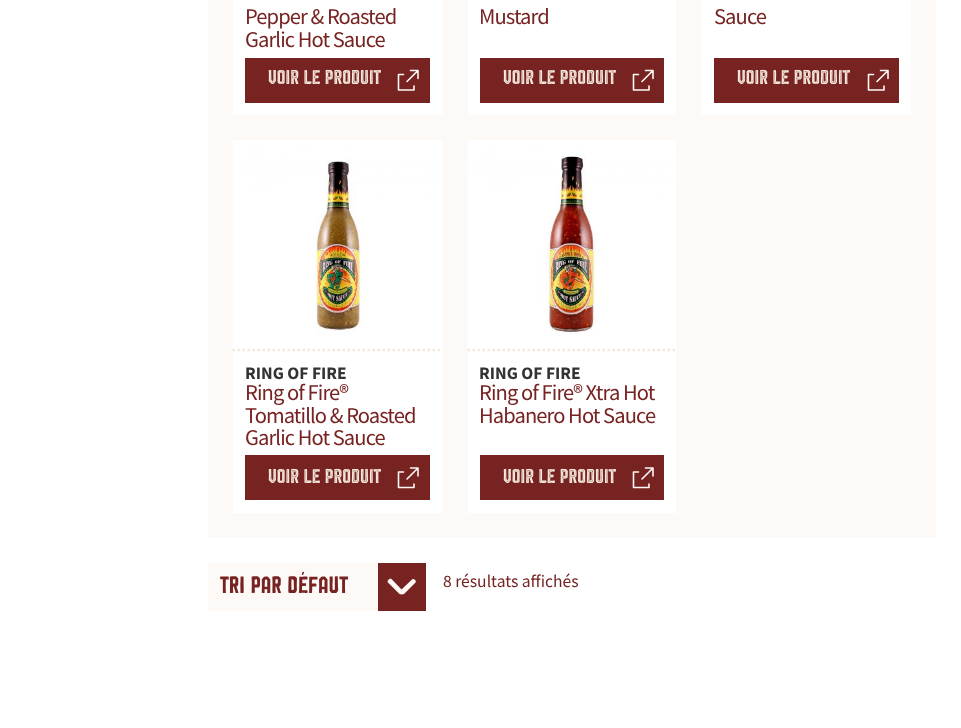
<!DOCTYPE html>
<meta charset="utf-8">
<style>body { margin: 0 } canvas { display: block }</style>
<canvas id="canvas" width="961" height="728"></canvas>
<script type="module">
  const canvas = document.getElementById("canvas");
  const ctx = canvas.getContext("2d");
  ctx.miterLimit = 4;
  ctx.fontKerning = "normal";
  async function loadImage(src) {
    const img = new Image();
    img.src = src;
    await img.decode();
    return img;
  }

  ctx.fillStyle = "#ffffff";
  ctx.fillRect(0, 0, 961, 728);
  ctx.fillStyle = "#fdf9f7";
  ctx.fillRect(208, 0, 728, 538);
  ctx.fillStyle = "#ffffff";
  ctx.fillRect(233, 0, 210, 115);
  ctx.letterSpacing = "-0.9px";
  ctx.font = "22.5px Source Sans Pro";
  ctx.fillStyle = "#762322";
  ctx.fillText("Pepper & Roasted", 245, 24);
  ctx.fillText("Garlic Hot Sauce", 245, 47);
  ctx.fillRect(245, 58, 185, 45);
  ctx.beginPath();
  ctx.moveTo(403.5, 74.5);
  ctx.lineTo(398.5, 74.5);
  ctx.lineTo(398.5, 90);
  ctx.lineTo(414, 90);
  ctx.lineTo(414, 86);
  ctx.moveTo(410.5, 70.5);
  ctx.lineTo(418, 70.5);
  ctx.lineTo(418, 78.5);
  ctx.moveTo(418, 70.5);
  ctx.lineTo(407, 81.5);
  ctx.strokeStyle = "#fdf9f7";
  ctx.lineWidth = 1.6;
  ctx.lineCap = "round";
  ctx.lineJoin = "round";
  ctx.stroke();
  ctx.letterSpacing = "0px";
  ctx.font = "20px 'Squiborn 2'";
  ctx.fillStyle = "#f4e7db";
  ctx.fillText("VOIR LE PRODUIT", 268, 84);
  ctx.fillStyle = "#ffffff";
  ctx.fillRect(468, 0, 208, 115);
  ctx.letterSpacing = "-0.9px";
  ctx.font = "22.5px Source Sans Pro";
  ctx.fillStyle = "#762322";
  ctx.fillText("Mustard", 479, 24);
  ctx.fillRect(480, 58, 184, 45);
  ctx.beginPath();
  ctx.moveTo(638.5, 74.5);
  ctx.lineTo(633.5, 74.5);
  ctx.lineTo(633.5, 90);
  ctx.lineTo(649, 90);
  ctx.lineTo(649, 86);
  ctx.moveTo(645.5, 70.5);
  ctx.lineTo(653, 70.5);
  ctx.lineTo(653, 78.5);
  ctx.moveTo(653, 70.5);
  ctx.lineTo(642, 81.5);
  ctx.stroke();
  ctx.letterSpacing = "0px";
  ctx.font = "20px 'Squiborn 2'";
  ctx.fillStyle = "#f4e7db";
  ctx.fillText("VOIR LE PRODUIT", 503, 84);
  ctx.fillStyle = "#ffffff";
  ctx.fillRect(701, 0, 210, 115);
  ctx.letterSpacing = "-0.9px";
  ctx.font = "22.5px Source Sans Pro";
  ctx.fillStyle = "#762322";
  ctx.fillText("Sauce", 714, 24);
  ctx.fillRect(714, 58, 185, 45);
  ctx.beginPath();
  ctx.moveTo(873.5, 74.5);
  ctx.lineTo(868.5, 74.5);
  ctx.lineTo(868.5, 90);
  ctx.lineTo(884, 90);
  ctx.lineTo(884, 86);
  ctx.moveTo(880.5, 70.5);
  ctx.lineTo(888, 70.5);
  ctx.lineTo(888, 78.5);
  ctx.moveTo(888, 70.5);
  ctx.lineTo(877, 81.5);
  ctx.stroke();
  ctx.letterSpacing = "0px";
  ctx.font = "20px 'Squiborn 2'";
  ctx.fillStyle = "#f4e7db";
  ctx.fillText("VOIR LE PRODUIT", 737, 84);
  ctx.fillStyle = "#ffffff";
  ctx.fillRect(233, 140, 210, 373);
  ctx.beginPath();
  ctx.moveTo(232.5, 350);
  ctx.lineTo(442.5, 350);
  ctx.strokeStyle = "#f4e7db";
  ctx.lineWidth = 2.5;
  ctx.lineCap = "butt";
  ctx.lineJoin = "miter";
  ctx.setLineDash([2.5, 2.5]);
  ctx.stroke();
  ctx.drawImage(await loadImage("img1.png"), 232, 142, 208, 207);
  ctx.font = "bold 17.5px Source Sans Pro";
  ctx.fillStyle = "#333333";
  ctx.fillText("RING OF FIRE", 245, 379);
  ctx.letterSpacing = "-0.9px";
  ctx.font = "22.5px Source Sans Pro";
  ctx.fillStyle = "#762322";
  ctx.fillText("Ring of Fire®", 245, 400);
  ctx.fillText("Tomatillo & Roasted", 245, 423);
  ctx.fillText("Garlic Hot Sauce", 245, 445);
  ctx.fillRect(245, 455, 185, 45);
  ctx.beginPath();
  ctx.moveTo(403.5, 472);
  ctx.lineTo(398.5, 472);
  ctx.lineTo(398.5, 487.5);
  ctx.lineTo(414, 487.5);
  ctx.lineTo(414, 484);
  ctx.moveTo(410.5, 468);
  ctx.lineTo(418, 468);
  ctx.lineTo(418, 476);
  ctx.moveTo(418, 468);
  ctx.lineTo(407, 479);
  ctx.strokeStyle = "#fdf9f7";
  ctx.lineWidth = 1.6;
  ctx.lineCap = "round";
  ctx.lineJoin = "round";
  ctx.setLineDash([]);
  ctx.stroke();
  ctx.letterSpacing = "0px";
  ctx.font = "20px 'Squiborn 2'";
  ctx.fillStyle = "#f4e7db";
  ctx.fillText("VOIR LE PRODUIT", 268, 483);
  ctx.fillStyle = "#ffffff";
  ctx.fillRect(468, 140, 208, 373);
  ctx.beginPath();
  ctx.moveTo(467.5, 350);
  ctx.lineTo(676, 350);
  ctx.strokeStyle = "#f4e7db";
  ctx.lineWidth = 2.5;
  ctx.lineCap = "butt";
  ctx.lineJoin = "miter";
  ctx.setLineDash([2.5, 2.5]);
  ctx.stroke();
  ctx.drawImage(await loadImage("img2.png"), 467, 142, 208, 207);
  ctx.font = "bold 17.5px Source Sans Pro";
  ctx.fillStyle = "#333333";
  ctx.fillText("RING OF FIRE", 479, 379);
  ctx.letterSpacing = "-0.9px";
  ctx.font = "22.5px Source Sans Pro";
  ctx.fillStyle = "#762322";
  ctx.fillText("Ring of Fire® Xtra Hot", 479, 400);
  ctx.fillText("Habanero Hot Sauce", 479, 423);
  ctx.fillRect(480, 455, 184, 45);
  ctx.beginPath();
  ctx.moveTo(638.5, 472);
  ctx.lineTo(633.5, 472);
  ctx.lineTo(633.5, 487.5);
  ctx.lineTo(649, 487.5);
  ctx.lineTo(649, 484);
  ctx.moveTo(645.5, 468);
  ctx.lineTo(653, 468);
  ctx.lineTo(653, 476);
  ctx.moveTo(653, 468);
  ctx.lineTo(642, 479);
  ctx.strokeStyle = "#fdf9f7";
  ctx.lineWidth = 1.6;
  ctx.lineCap = "round";
  ctx.lineJoin = "round";
  ctx.setLineDash([]);
  ctx.stroke();
  ctx.letterSpacing = "0px";
  ctx.font = "20px 'Squiborn 2'";
  ctx.fillStyle = "#f4e7db";
  ctx.fillText("VOIR LE PRODUIT", 503, 483);
  ctx.fillStyle = "#fdf9f7";
  ctx.fillRect(208, 563, 170, 48);
  ctx.fillStyle = "#762322";
  ctx.fillRect(378, 563, 48, 48);
  ctx.fillStyle = "#fdf9f7";
  ctx.beginPath();
  ctx.moveTo(401.5, 589.5);
  ctx.lineTo(391.5, 579);
  ctx.bezierCurveTo(389.5, 577.5, 386.5, 581, 388, 582.5);
  ctx.lineTo(399.5, 594);
  ctx.bezierCurveTo(400.5, 594.5, 403, 594.5, 404, 594);
  ctx.lineTo(415.5, 582.5);
  ctx.bezierCurveTo(417, 581, 413.5, 577.5, 412, 579.5);
  ctx.closePath();
  ctx.fill();
  ctx.font = "23.75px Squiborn";
  ctx.fillStyle = "#762322";
  ctx.fillText("Tri par défaut", 220, 593);
  ctx.font = "17.5px Source Sans Pro";
  ctx.fillText("8 résultats affichés", 443, 587);
</script>
